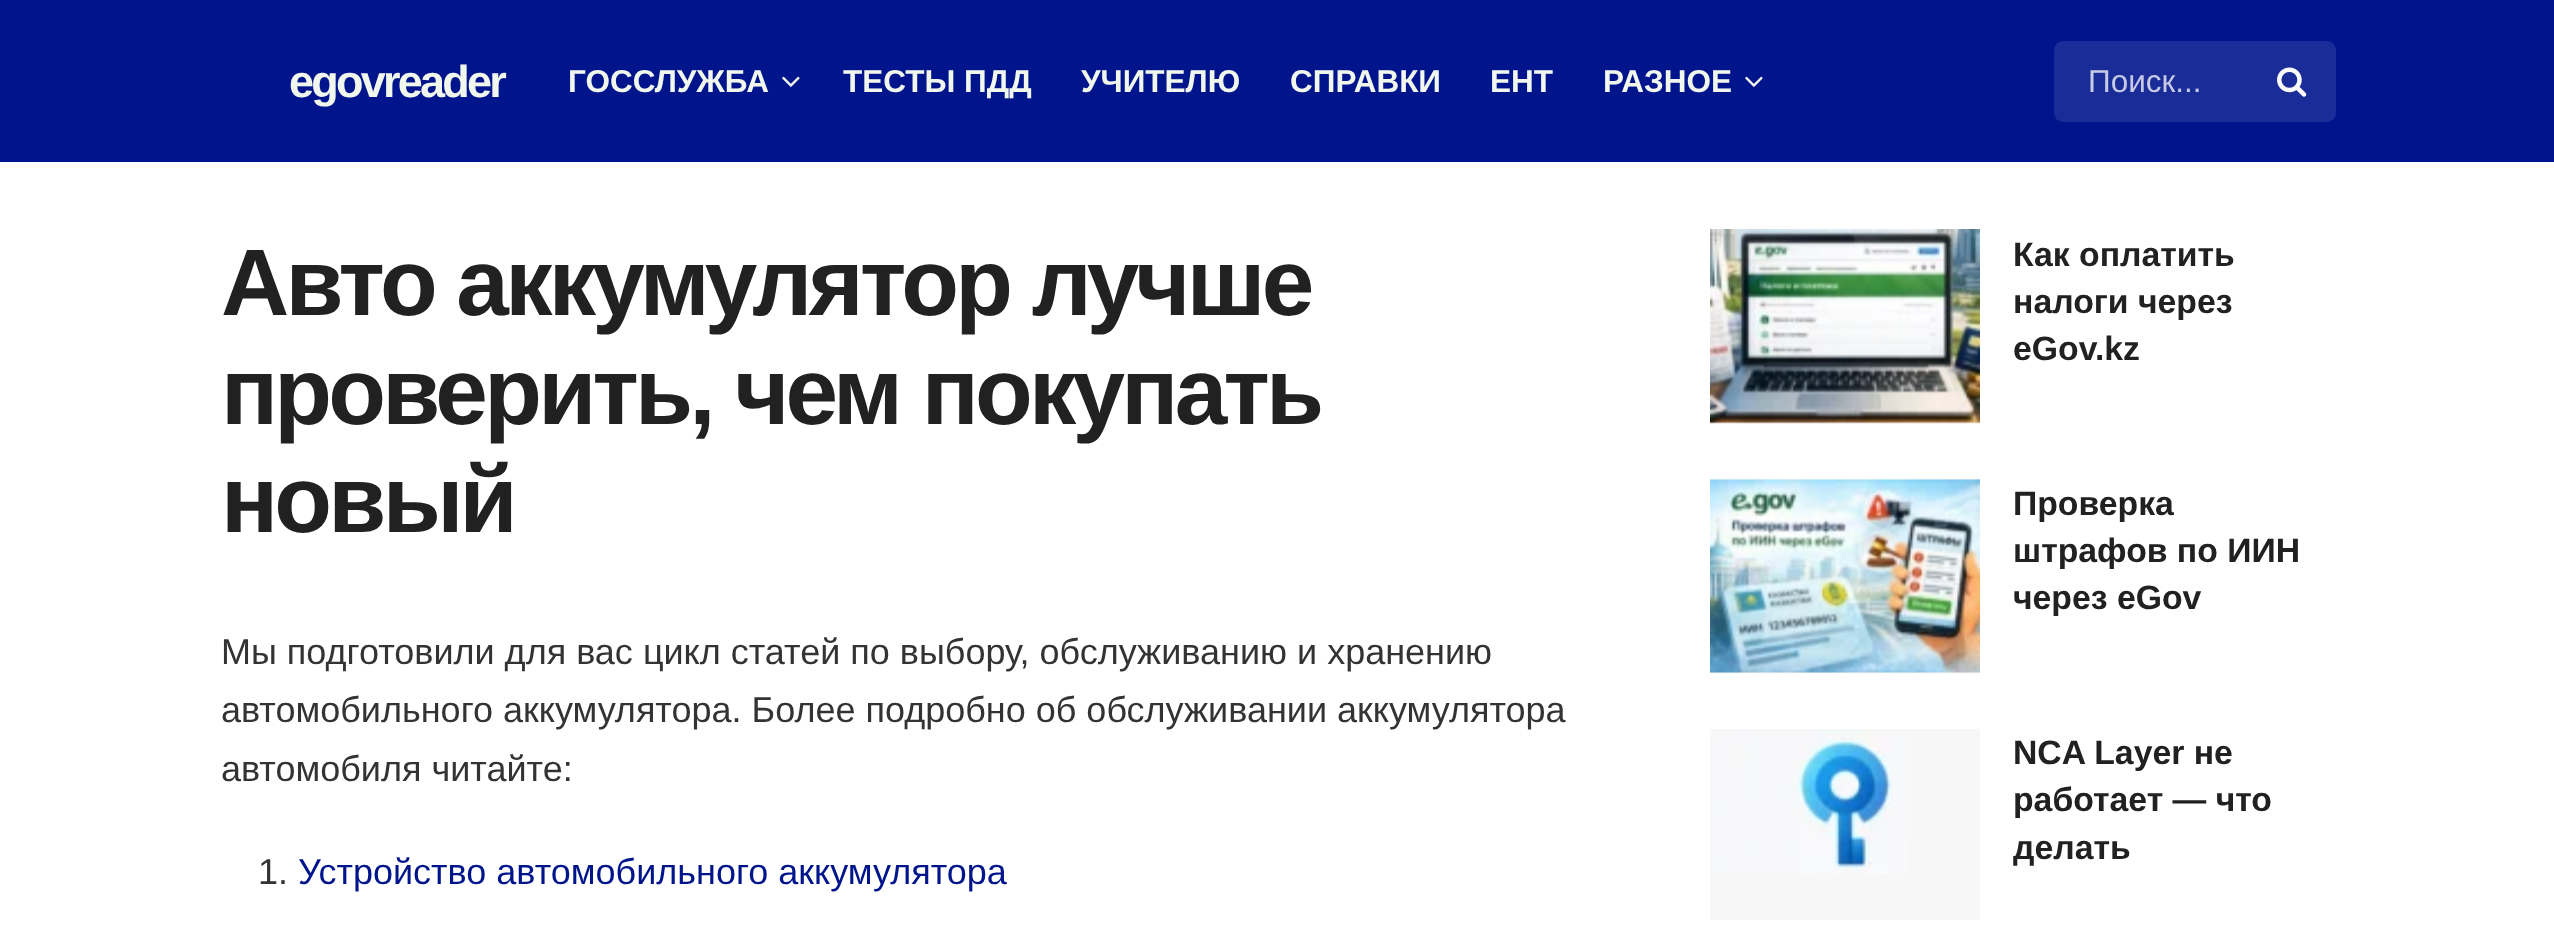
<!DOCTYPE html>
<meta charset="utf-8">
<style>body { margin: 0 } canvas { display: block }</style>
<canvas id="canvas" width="2554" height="927"></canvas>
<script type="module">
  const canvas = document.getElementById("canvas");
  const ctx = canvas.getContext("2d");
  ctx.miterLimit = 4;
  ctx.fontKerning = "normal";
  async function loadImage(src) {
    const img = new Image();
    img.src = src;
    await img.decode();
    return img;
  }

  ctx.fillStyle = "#ffffff";
  ctx.fillRect(0, 0, 2554, 927);
  ctx.fillStyle = "#00158c";
  ctx.fillRect(0, 0, 2554, 162);
  ctx.letterSpacing = "-2.75px";
  ctx.font = "bold 45px Liberation Sans";
  ctx.fillStyle = "#f1f7ed";
  ctx.fillText("egovreader", 289, 97);
  ctx.letterSpacing = "0px";
  ctx.font = "bold 31.5px Liberation Sans";
  ctx.fillText("ГОССЛУЖБА", 568, 92);
  ctx.drawImage(await loadImage("img1.png"), 782, 76, 18, 11);
  ctx.fillText("ТЕСТЫ ПДД", 843, 92);
  ctx.fillText("УЧИТЕЛЮ", 1081, 92);
  ctx.fillText("СПРАВКИ", 1290, 92);
  ctx.fillText("ЕНТ", 1490, 92);
  ctx.fillText("РАЗНОЕ", 1603, 92);
  ctx.drawImage(await loadImage("img1.png"), 1745, 76, 18, 11);
  ctx.fillStyle = "#1a2c98";
  ctx.beginPath();
  ctx.roundRect(2054, 41, 282, 81, 9);
  ctx.fill();
  ctx.font = "31.5px Liberation Sans";
  ctx.fillStyle = "#c6cae5";
  ctx.fillText("Поиск...", 2088, 92);
  ctx.drawImage(await loadImage("img2.png"), 2277, 67, 30, 30);
  ctx.letterSpacing = "-3.75px";
  ctx.font = "bold 94.5px Liberation Sans";
  ctx.fillStyle = "#212121";
  ctx.fillText("Авто аккумулятор лучше", 221, 315);
  ctx.fillText("проверить, чем покупать", 221, 424);
  ctx.fillText("новый", 221, 532);
  ctx.letterSpacing = "0px";
  ctx.font = "36px Liberation Sans";
  ctx.fillStyle = "#333333";
  ctx.fillText("Мы подготовили для вас цикл статей по выбору, обслуживанию и хранению", 221, 664);
  ctx.fillText("автомобильного аккумулятора. Более подробно об обслуживании аккумулятора", 221, 722);
  ctx.fillText("автомобиля читайте:", 221, 781);
  ctx.fillText("1.", 258, 884);
  ctx.fillStyle = "#00158c";
  ctx.fillText("Устройство автомобильного аккумулятора", 298, 884);
  ctx.fillStyle = "#f7f7f7";
  ctx.fillRect(1710, 422, 270, 1);
  ctx.drawImage(await loadImage("img3.png"), 1710, 229, 270, 195);
  ctx.font = "bold 33.75px Liberation Sans";
  ctx.fillStyle = "#212121";
  ctx.fillText("Как оплатить", 2013, 266);
  ctx.fillText("налоги через", 2013, 313);
  ctx.fillText("eGov.kz", 2013, 360);
  ctx.fillStyle = "#f7f7f7";
  ctx.fillRect(1710, 479, 270, 194);
  ctx.drawImage(await loadImage("img4.png"), 1710, 478, 270, 196);
  ctx.fillStyle = "#212121";
  ctx.fillText("Проверка", 2013, 515);
  ctx.fillText("штрафов по ИИН", 2013, 562);
  ctx.fillText("через eGov", 2013, 609);
  ctx.fillStyle = "#f7f7f7";
  ctx.fillRect(1710, 729, 270, 191);
  ctx.drawImage(await loadImage("img5.png"), 1710, 730, 197, 144);
  ctx.fillStyle = "#212121";
  ctx.fillText("NCA Layer не", 2013, 764);
  ctx.fillText("работает — что", 2013, 811);
  ctx.fillText("делать", 2013, 859);
</script>
